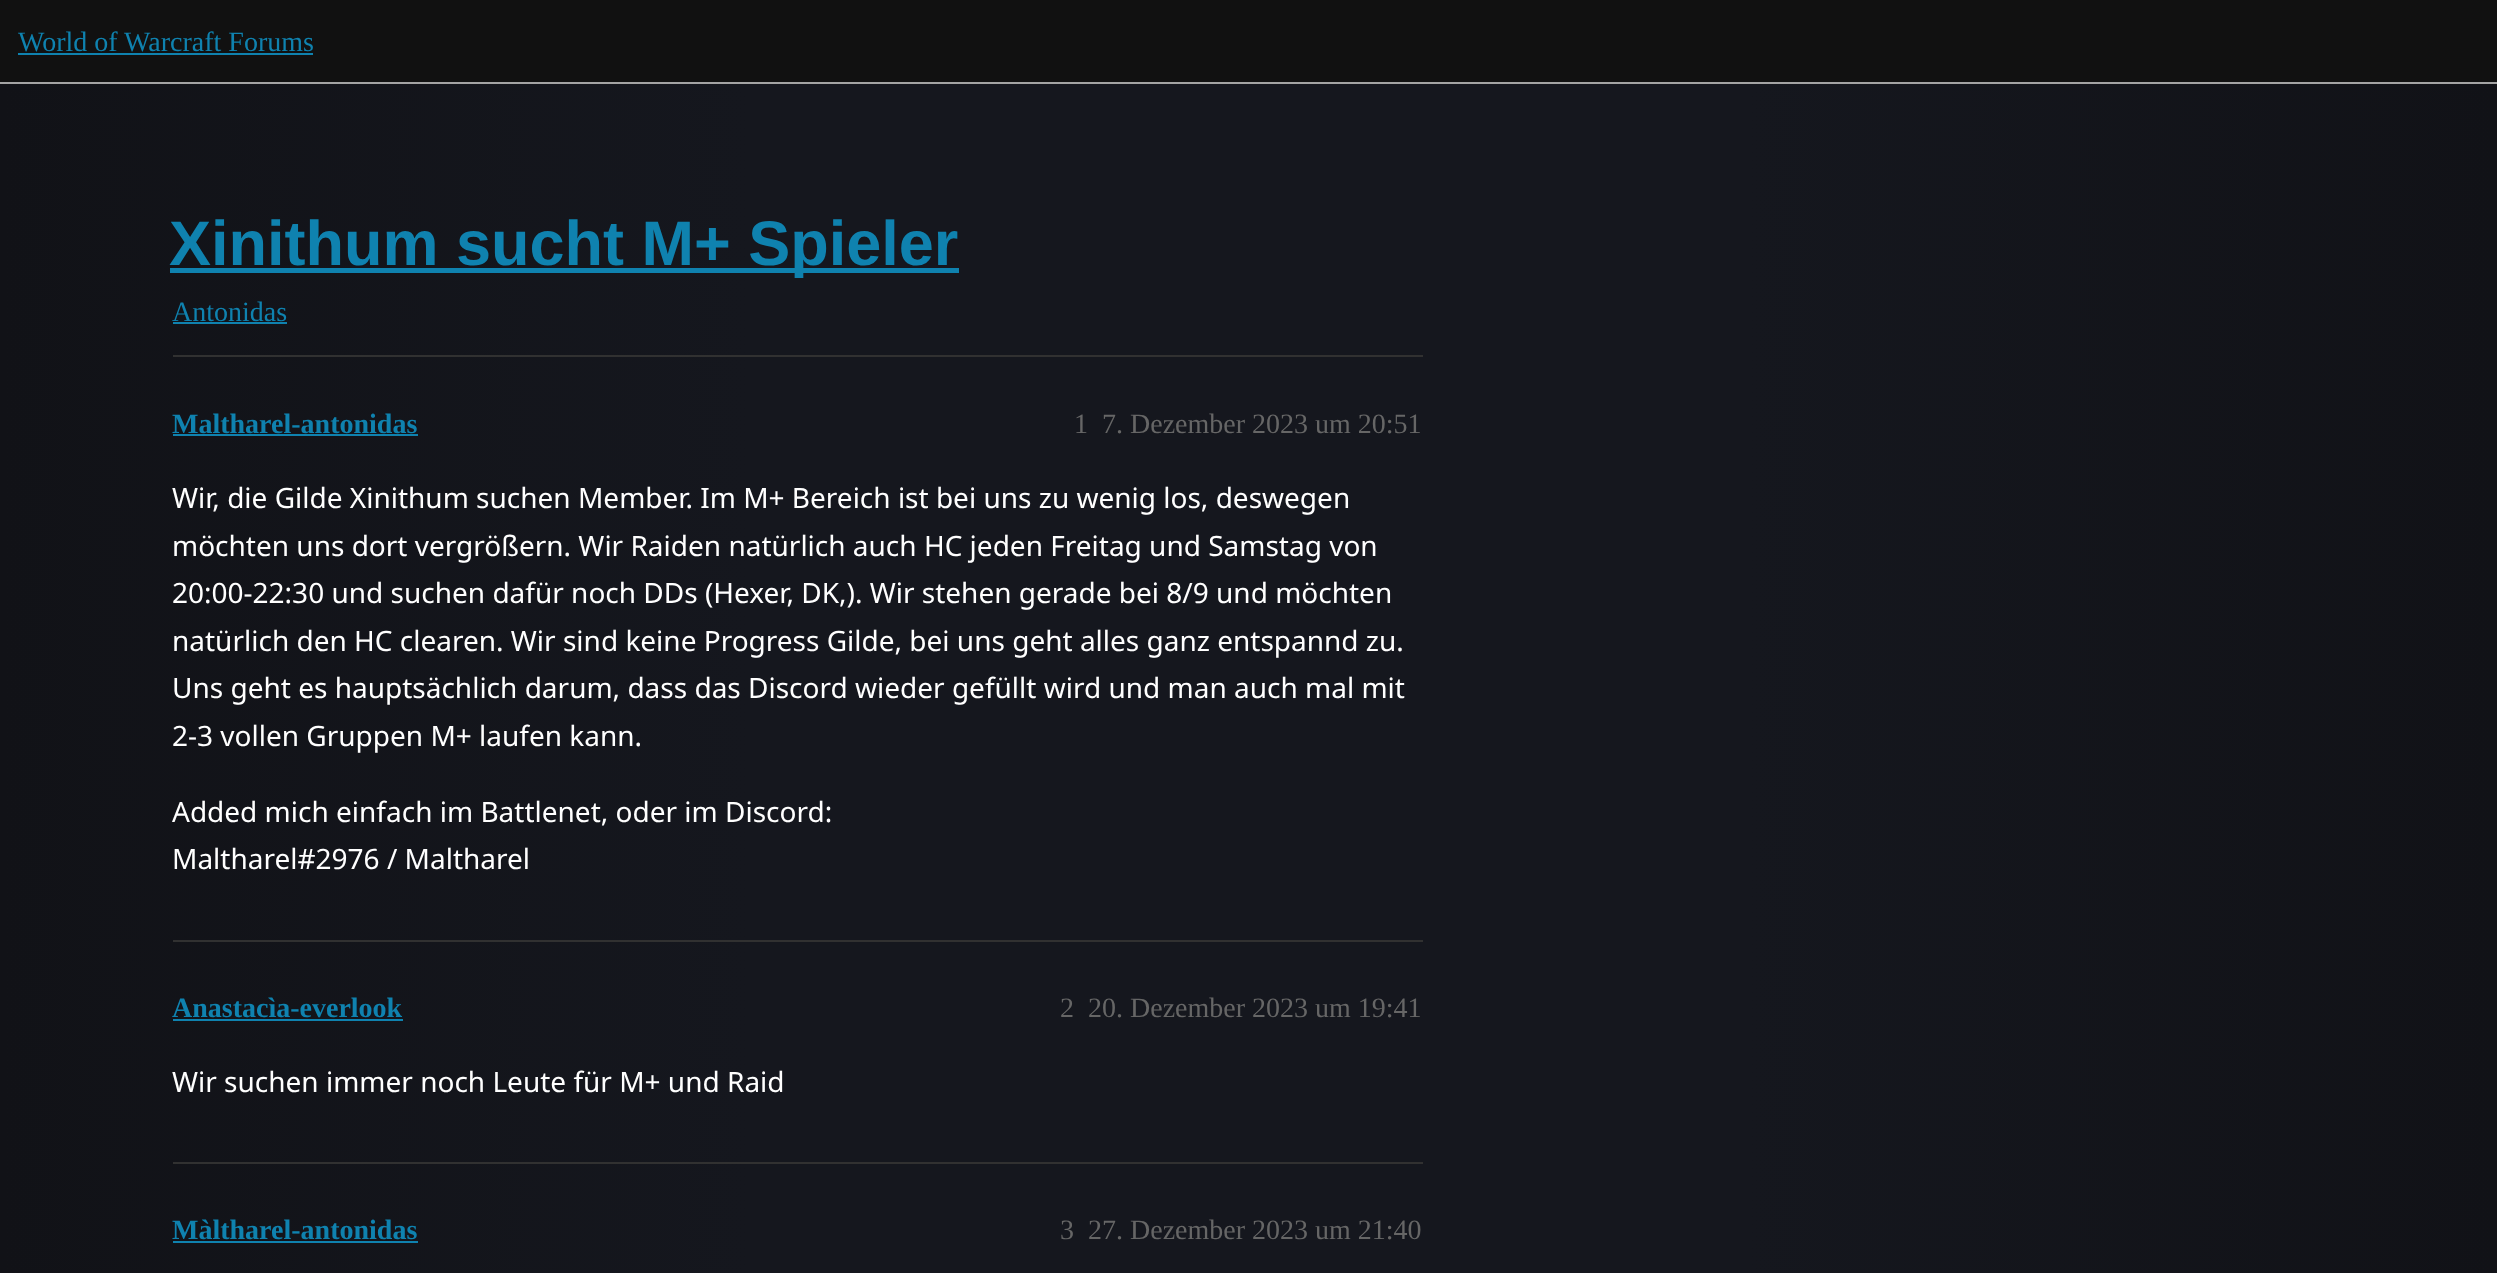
<!DOCTYPE html>
<meta charset="utf-8">
<style>body { margin: 0 } canvas { display: block }</style>
<canvas id="canvas" width="2497" height="1273"></canvas>
<script type="module">
  const canvas = document.getElementById("canvas");
  const ctx = canvas.getContext("2d");
  ctx.miterLimit = 4;
  ctx.fontKerning = "normal";
  let gradient;

  ctx.fillStyle = "#ffffff";
  ctx.fillRect(0, 0, 2497, 1273);
  gradient = ctx.createLinearGradient(0, 930, 2497, 930);
  gradient.addColorStop(0, "#111217");
  gradient.addColorStop(0.3, "#15171e");
  gradient.addColorStop(0.7, "#15171e");
  gradient.addColorStop(1, "#111217");
  ctx.fillStyle = gradient;
  ctx.fillRect(0, 84, 2497, 1189);
  ctx.fillStyle = "#111111";
  ctx.fillRect(0, 0, 2497, 82);
  ctx.fillStyle = "#a4a4a4";
  ctx.fillRect(0, 82, 2497, 2);
  ctx.font = "28px Liberation Serif";
  ctx.fillStyle = "#0f82af";
  ctx.fillText("World of Warcraft Forums", 18, 51);
  ctx.fillRect(18, 53, 295, 2);
  ctx.fillRect(170, 268, 789, 5);
  ctx.font = "bold 63px Liberation Sans";
  ctx.fillText("Xinithum sucht M+ Spieler", 169, 265);
  ctx.font = "28px Liberation Serif";
  ctx.fillText("Antonidas", 172, 321);
  ctx.fillRect(173, 322, 114, 2);
  ctx.fillStyle = "#313131";
  ctx.fillRect(173, 355, 1250, 2);
  ctx.font = "bold 28px Liberation Serif";
  ctx.fillStyle = "#0f82af";
  ctx.fillText("Maltharel-antonidas", 172, 433);
  ctx.fillRect(173, 434, 245, 2);
  ctx.font = "28px Liberation Serif";
  ctx.fillStyle = "#666666";
  ctx.fillText("1", 1074, 433);
  ctx.fillText("7. Dezember 2023 um 20:51", 1102, 433);
  ctx.font = "28px Noto Sans";
  ctx.fillStyle = "#ffffff";
  ctx.fillText("Wir, die Gilde Xinithum suchen Member. Im M+ Bereich ist bei uns zu wenig los, deswegen", 172, 508);
  ctx.fillText("möchten uns dort vergrößern. Wir Raiden natürlich auch HC jeden Freitag und Samstag von", 172, 556);
  ctx.fillText("20:00-22:30 und suchen dafür noch DDs (Hexer, DK,). Wir stehen gerade bei 8/9 und möchten", 172, 603);
  ctx.fillText("natürlich den HC clearen. Wir sind keine Progress Gilde, bei uns geht alles ganz entspannd zu.", 172, 651);
  ctx.fillText("Uns geht es hauptsächlich darum, dass das Discord wieder gefüllt wird und man auch mal mit", 172, 698);
  ctx.fillText("2-3 vollen Gruppen M+ laufen kann.", 172, 746);
  ctx.fillText("Added mich einfach im Battlenet, oder im Discord:", 172, 822);
  ctx.fillText("Maltharel#2976 / Maltharel", 172, 869);
  ctx.fillStyle = "#313131";
  ctx.fillRect(173, 940, 1250, 2);
  ctx.font = "bold 28px Liberation Serif";
  ctx.fillStyle = "#0f82af";
  ctx.fillText("Anastacìa-everlook", 172, 1017);
  ctx.fillRect(173, 1019, 230, 2);
  ctx.font = "28px Liberation Serif";
  ctx.fillStyle = "#666666";
  ctx.fillText("2", 1060, 1017);
  ctx.fillText("20. Dezember 2023 um 19:41", 1088, 1017);
  ctx.font = "28px Noto Sans";
  ctx.fillStyle = "#ffffff";
  ctx.fillText("Wir suchen immer noch Leute für M+ und Raid", 172, 1092);
  ctx.fillStyle = "#313131";
  ctx.fillRect(173, 1162, 1250, 2);
  ctx.font = "bold 28px Liberation Serif";
  ctx.fillStyle = "#0f82af";
  ctx.fillText("Màltharel-antonidas", 172, 1239);
  ctx.fillRect(173, 1241, 245, 2);
  ctx.font = "28px Liberation Serif";
  ctx.fillStyle = "#666666";
  ctx.fillText("3", 1060, 1239);
  ctx.fillText("27. Dezember 2023 um 21:40", 1088, 1239);
</script>
